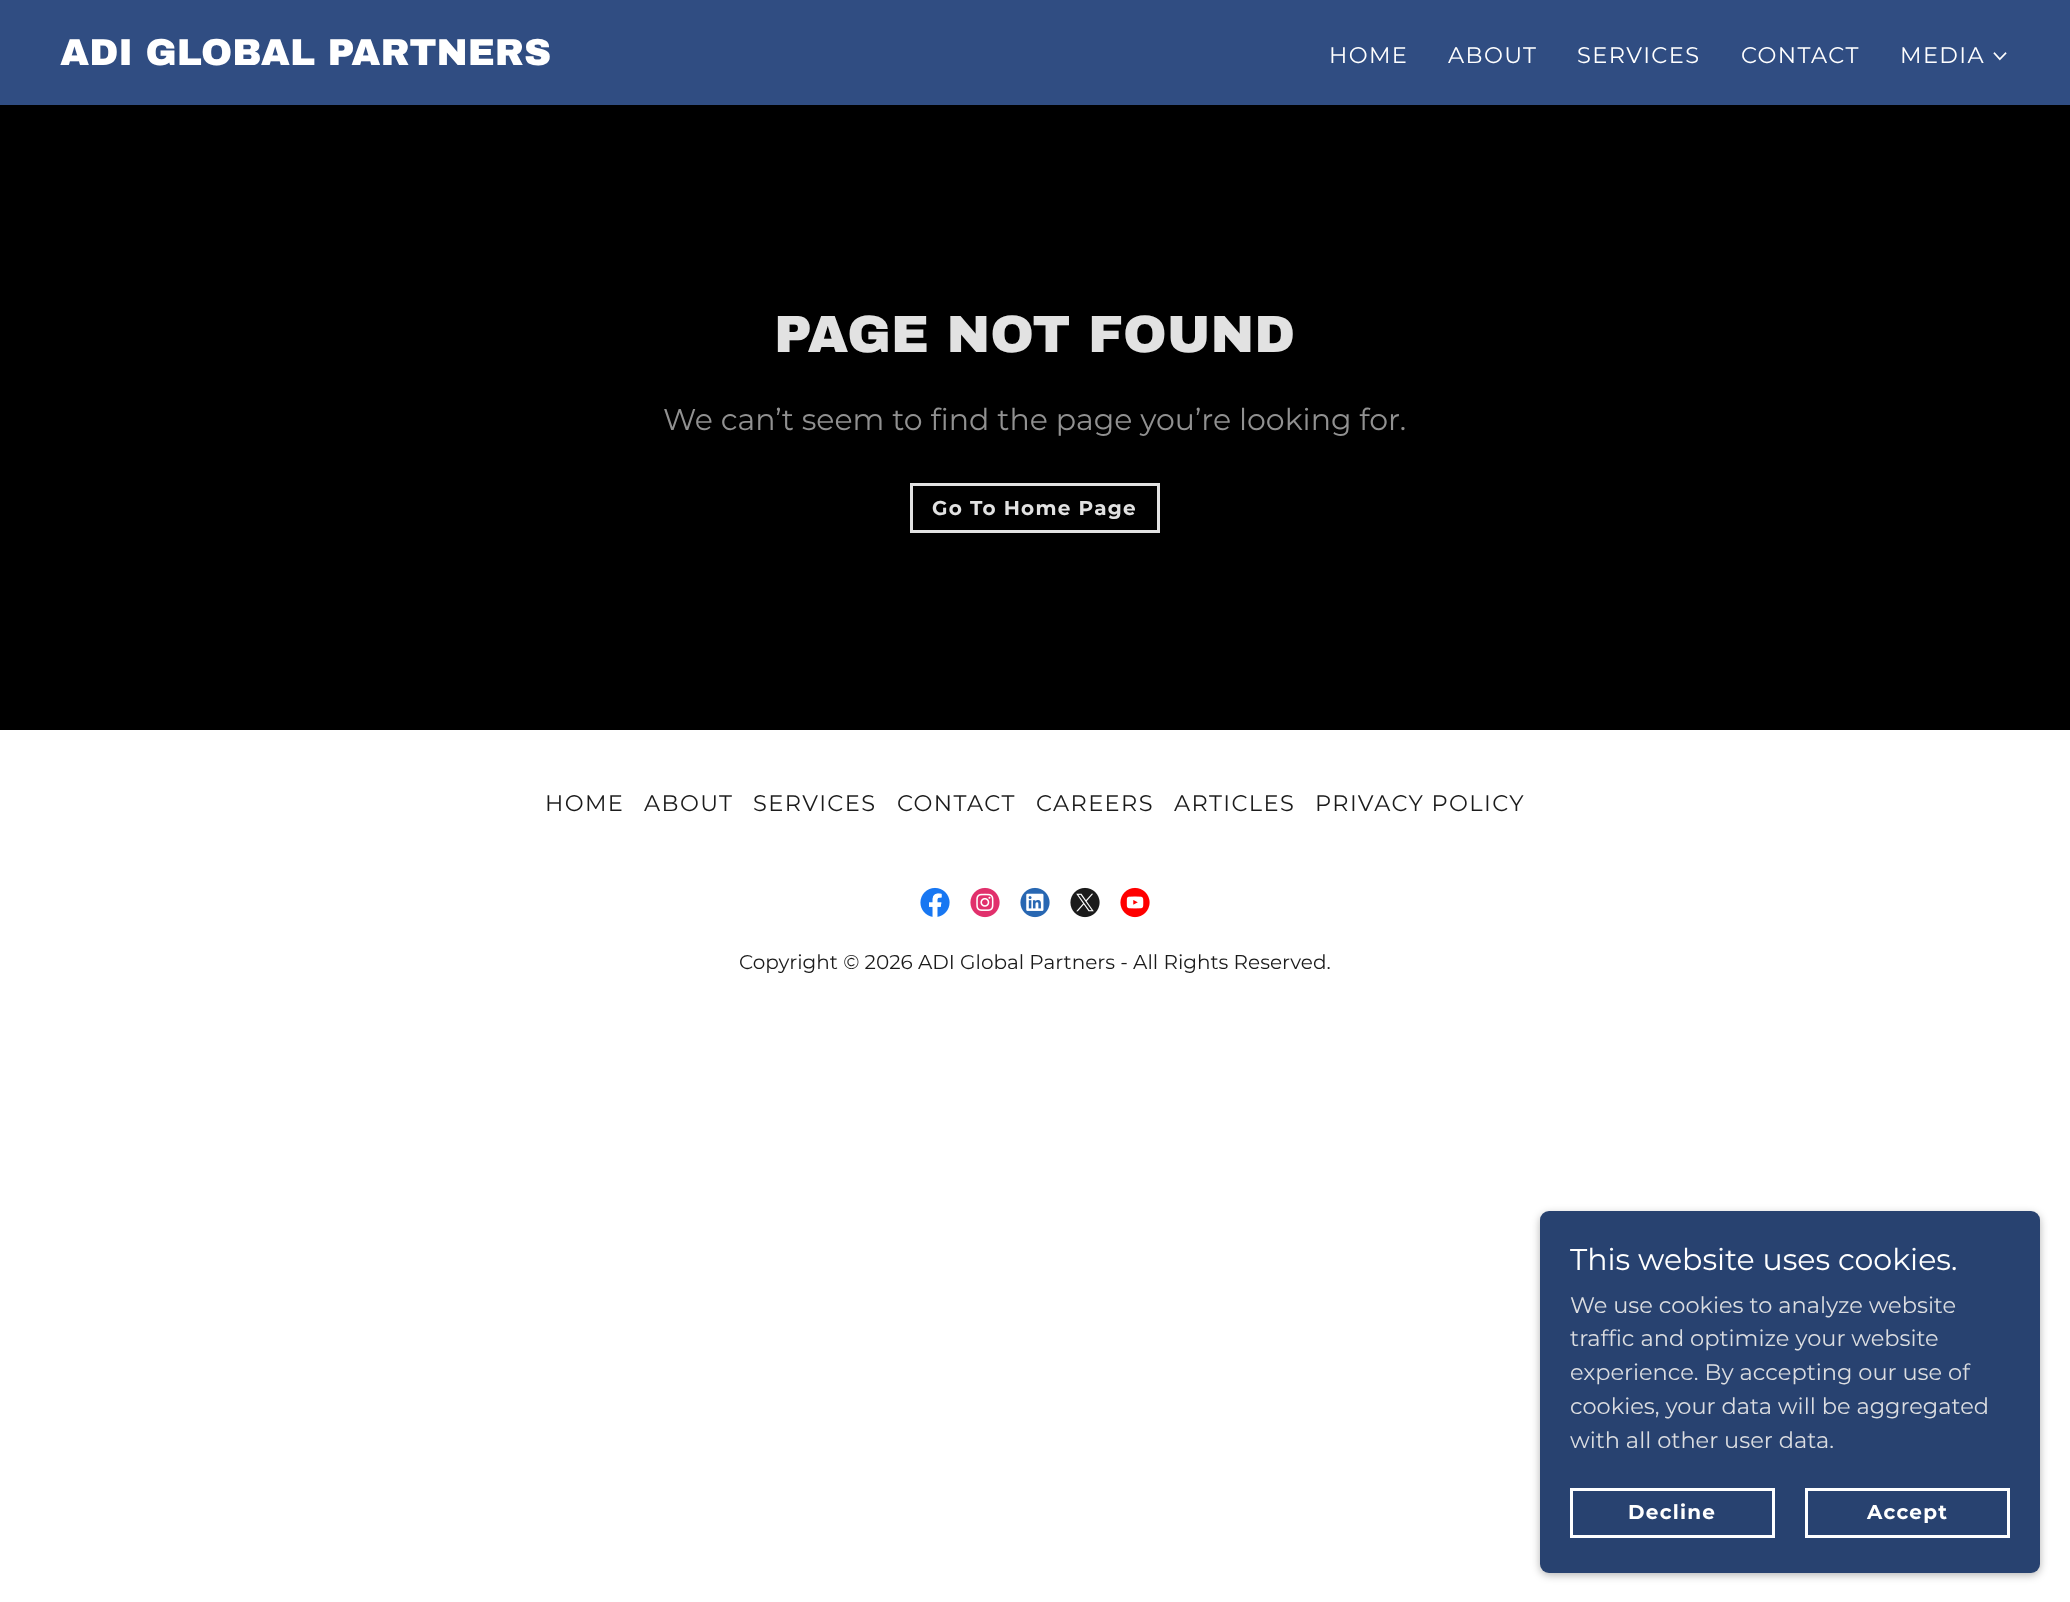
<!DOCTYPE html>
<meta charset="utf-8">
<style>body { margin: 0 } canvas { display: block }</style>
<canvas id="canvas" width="2070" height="1602"></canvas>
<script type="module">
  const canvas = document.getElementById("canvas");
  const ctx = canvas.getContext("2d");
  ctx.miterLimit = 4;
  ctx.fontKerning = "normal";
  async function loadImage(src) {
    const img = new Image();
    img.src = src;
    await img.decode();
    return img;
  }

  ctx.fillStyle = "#ffffff";
  ctx.fillRect(0, 0, 2070, 1602);
  ctx.fillStyle = "#304d82";
  ctx.fillRect(0, 0, 2070, 105);
  ctx.font = "900 37.5px Archivo Black";
  ctx.fillStyle = "#ffffff";
  ctx.fillText("ADI GLOBAL PARTNERS", 60, 65);
  ctx.letterSpacing = "1.4px";
  ctx.font = "22.5px Montserrat";
  ctx.fillText("HOME", 1329, 63);
  ctx.fillText("ABOUT", 1448, 63);
  ctx.fillText("SERVICES", 1577, 63);
  ctx.fillText("CONTACT", 1741, 63);
  ctx.fillText("MEDIA", 1900, 63);
  ctx.drawImage(await loadImage("img1.png"), 1993, 52, 14, 9);
  ctx.fillStyle = "#000000";
  ctx.fillRect(0, 105, 2070, 625);
  ctx.letterSpacing = "0px";
  ctx.font = "900 52.5px Archivo Black";
  ctx.fillStyle = "#e2e2e2";
  ctx.fillText("PAGE NOT FOUND", 774, 352);
  ctx.font = "30px Montserrat";
  ctx.fillStyle = "#919191";
  ctx.fillText("We can’t seem to find the page you’re looking for.", 663, 430);
  ctx.strokeStyle = "#e2e2e2";
  ctx.lineWidth = 3;
  ctx.strokeRect(911.5, 484.5, 247, 47);
  ctx.letterSpacing = "1.25px";
  ctx.font = "bold 20px Montserrat";
  ctx.fillStyle = "#e2e2e2";
  ctx.fillText("Go To Home Page", 932, 515);
  ctx.letterSpacing = "1.4px";
  ctx.font = "22.5px Montserrat";
  ctx.fillStyle = "#1b1b1b";
  ctx.fillText("HOME", 545, 811);
  ctx.fillText("ABOUT", 644, 811);
  ctx.fillText("SERVICES", 753, 811);
  ctx.fillText("CONTACT", 897, 811);
  ctx.fillText("CAREERS", 1036, 811);
  ctx.fillText("ARTICLES", 1174, 811);
  ctx.fillText("PRIVACY POLICY", 1315, 811);
  ctx.drawImage(await loadImage("img2.png"), 920, 887, 30, 30);
  ctx.drawImage(await loadImage("img3.png"), 970, 887, 30, 31);
  ctx.drawImage(await loadImage("img4.png"), 1020, 887, 30, 31);
  ctx.drawImage(await loadImage("img5.png"), 1070, 887, 30, 31);
  ctx.drawImage(await loadImage("img6.png"), 1120, 887, 30, 31);
  ctx.letterSpacing = "0px";
  ctx.font = "20px Montserrat";
  ctx.fillText("Copyright © 2026 ADI Global Partners - All Rights Reserved.", 739, 969);
  ctx.fillStyle = "rgba(0, 0, 0, 0.3)";
  ctx.filter = "blur(4px)";
  ctx.beginPath();
  ctx.roundRect(1540, 1214, 500, 361, 9);
  ctx.fill();
  ctx.filter = "none";
  ctx.fillStyle = "#284270";
  ctx.beginPath();
  ctx.roundRect(1540, 1211, 500, 362, 9);
  ctx.fill();
  ctx.font = "30px Montserrat";
  ctx.fillStyle = "#ffffff";
  ctx.fillText("This website uses cookies.", 1570, 1270);
  ctx.font = "22.5px Montserrat";
  ctx.fillStyle = "#dbdde1";
  ctx.fillText("We use cookies to analyze website", 1570, 1313);
  ctx.fillText("traffic and optimize your website", 1570, 1346);
  ctx.fillText("experience. By accepting our use of", 1570, 1380);
  ctx.fillText("cookies, your data will be aggregated", 1570, 1414);
  ctx.fillText("with all other user data.", 1570, 1448);
  ctx.strokeStyle = "#ffffff";
  ctx.strokeRect(1571.5, 1489.5, 202, 47);
  ctx.letterSpacing = "1.25px";
  ctx.font = "bold 20px Montserrat";
  ctx.fillStyle = "#ffffff";
  ctx.fillText("Decline", 1628, 1519);
  ctx.strokeRect(1806.5, 1489.5, 202, 47);
  ctx.fillText("Accept", 1867, 1519);
</script>
